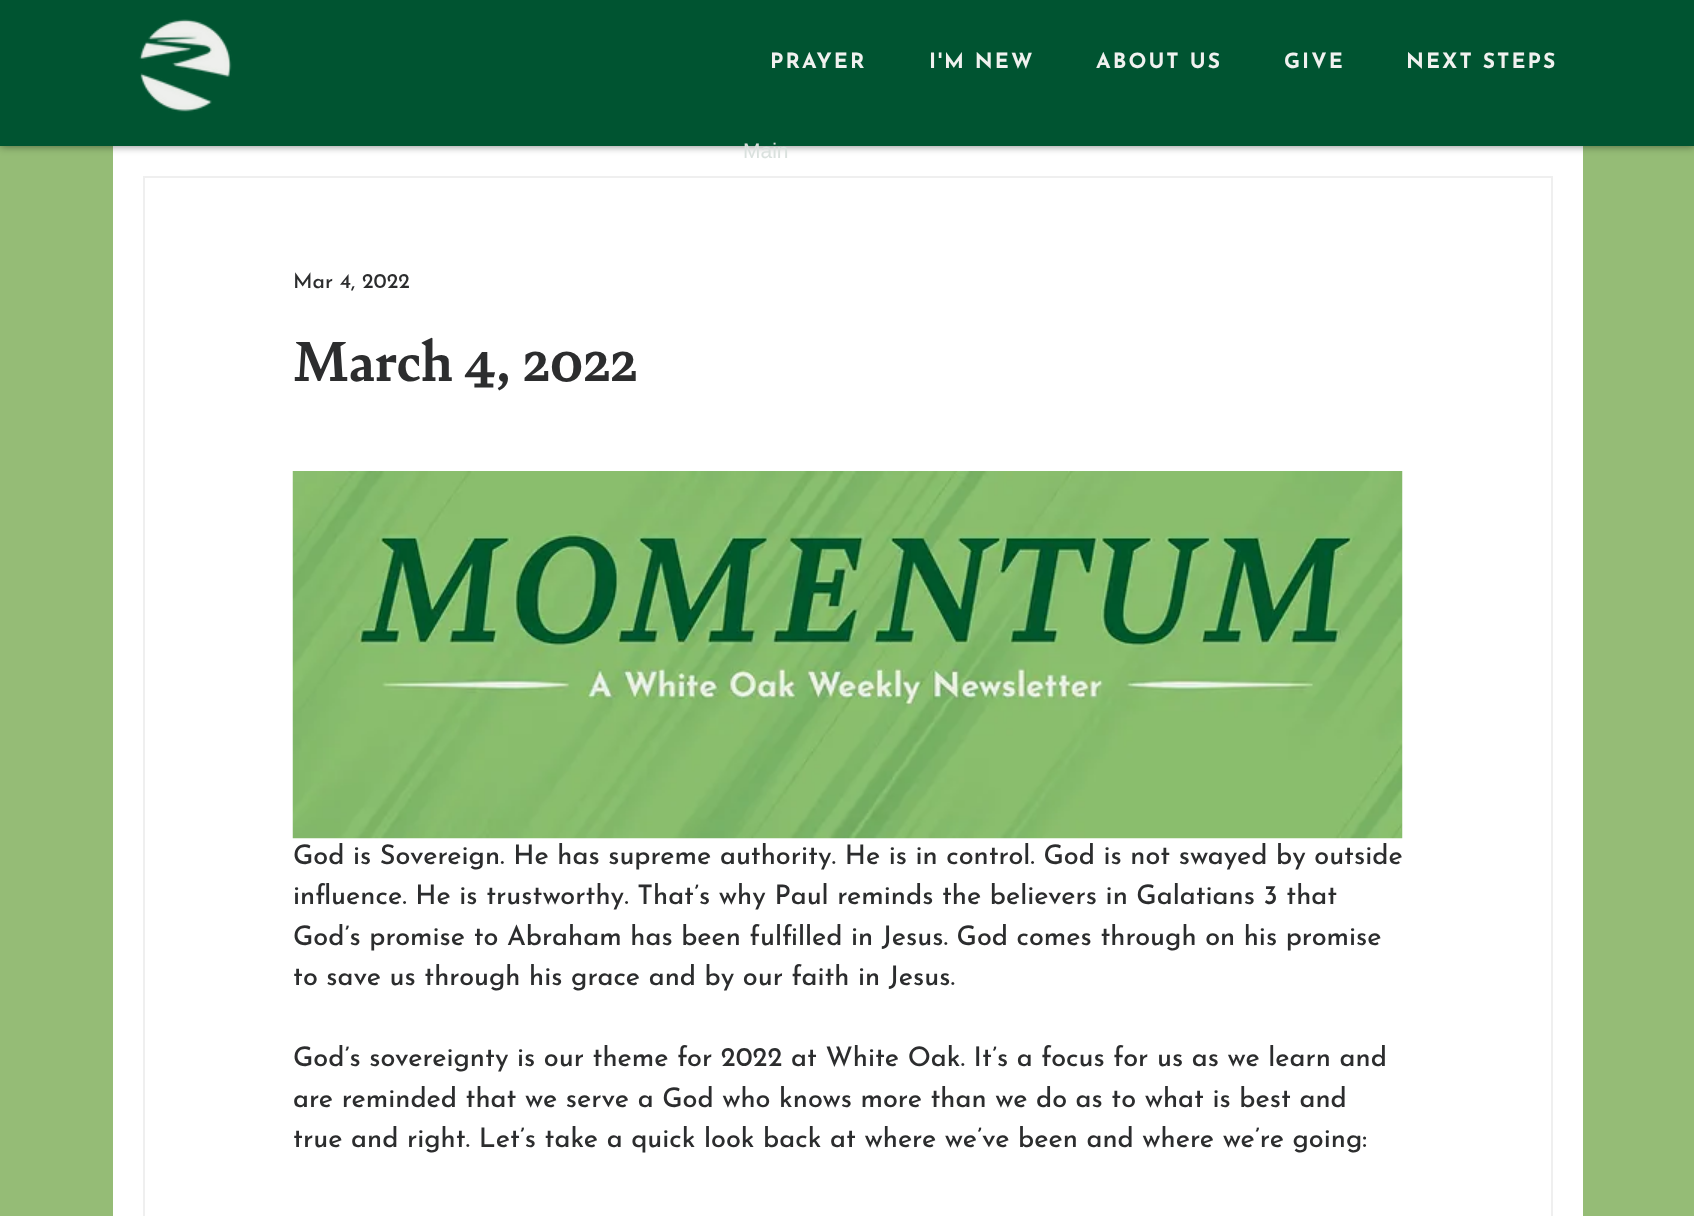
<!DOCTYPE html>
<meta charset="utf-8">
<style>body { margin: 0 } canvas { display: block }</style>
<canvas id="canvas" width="1694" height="1216"></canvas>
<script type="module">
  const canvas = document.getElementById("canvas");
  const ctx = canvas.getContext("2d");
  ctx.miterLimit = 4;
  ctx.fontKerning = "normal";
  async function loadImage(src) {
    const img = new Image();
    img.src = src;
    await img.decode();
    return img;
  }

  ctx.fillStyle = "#95bc76";
  ctx.fillRect(0, 0, 1694, 1216);
  ctx.fillStyle = "#ffffff";
  ctx.fillRect(113, 146, 1470, 1070);
  ctx.fillStyle = "rgba(0, 0, 0, 0.5)";
  ctx.filter = "blur(4px)";
  ctx.beginPath();
  ctx.rect(0, 0, 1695, 146);
  ctx.fill();
  ctx.filter = "none";
  ctx.fillStyle = "#005431";
  ctx.fillRect(0, 0, 1694, 146);
  ctx.drawImage(await loadImage("img1.png"), 139, 19, 93, 93);
  ctx.letterSpacing = "2.1px";
  ctx.font = "100 21px Josefin Sans";
  ctx.fillStyle = "#f0f1ef";
  ctx.fillText("PRAYER", 770, 68);
  ctx.fillText("I'M NEW", 929, 68);
  ctx.fillText("ABOUT US", 1096, 68);
  ctx.fillText("GIVE", 1284, 68);
  ctx.fillText("NEXT STEPS", 1406, 68);
  ctx.strokeStyle = "#efefef";
  ctx.lineWidth = 2;
  ctx.strokeRect(144, 177, 1408, 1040);
  ctx.letterSpacing = "0px";
  ctx.font = "500 21px Josefin Sans";
  ctx.fillStyle = "#2c2d2e";
  ctx.fillText("Mar 4, 2022", 293, 288);
  ctx.font = "bold 60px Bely";
  ctx.fillText("March 4, 2022", 293, 381);
  ctx.drawImage(await loadImage("img2.png"), 292, 471, 1111, 368);
  ctx.font = "500 27px Josefin Sans";
  ctx.fillText("God is Sovereign. He has supreme authority. He is in control. God is not swayed by outside", 293, 864);
  ctx.fillText("influence. He is trustworthy. That’s why Paul reminds the believers in Galatians 3 that", 293, 904);
  ctx.fillText("God’s promise to Abraham has been fulfilled in Jesus. God comes through on his promise", 293, 945);
  ctx.fillText("to save us through his grace and by our faith in Jesus.", 293, 985);
  ctx.fillText("God’s sovereignty is our theme for 2022 at White Oak. It’s a focus for us as we learn and", 293, 1066);
  ctx.fillText("are reminded that we serve a God who knows more than we do as to what is best and", 293, 1107);
  ctx.fillText("true and right. Let’s take a quick look back at where we’ve been and where we’re going:", 293, 1147);
  ctx.font = "21px Liberation Sans";
  ctx.fillStyle = "#dae1de";
  ctx.fillText("Main", 743, 158);
</script>
